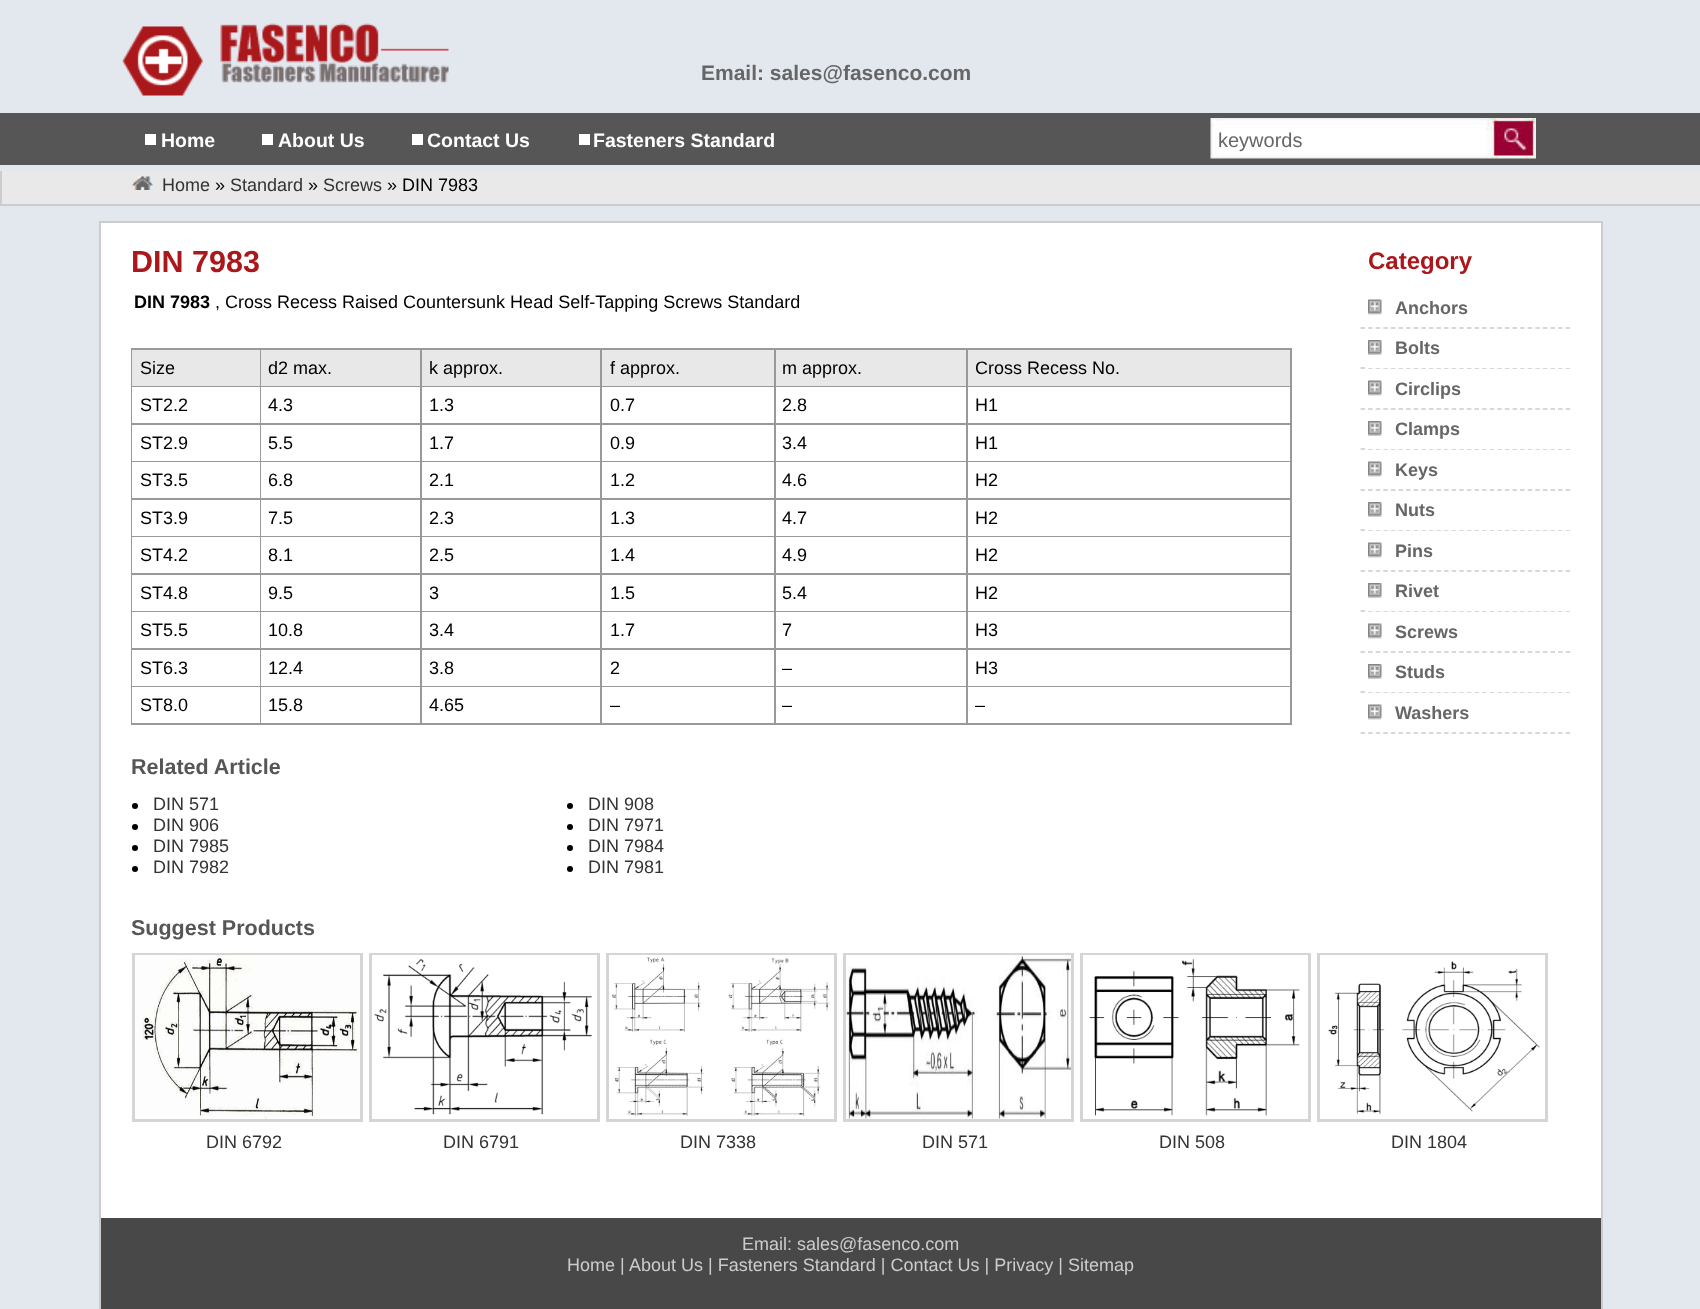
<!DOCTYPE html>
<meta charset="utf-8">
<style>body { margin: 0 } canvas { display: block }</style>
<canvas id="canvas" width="1700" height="1309"></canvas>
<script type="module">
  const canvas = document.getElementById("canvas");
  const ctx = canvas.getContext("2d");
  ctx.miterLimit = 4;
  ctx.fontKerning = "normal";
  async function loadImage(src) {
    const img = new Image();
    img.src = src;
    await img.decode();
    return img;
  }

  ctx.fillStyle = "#e3e8ef";
  ctx.fillRect(0, 0, 1700, 1309);
  ctx.drawImage(await loadImage("img1.png"), 122, 23, 327, 73);
  ctx.font = "bold 21px Liberation Sans";
  ctx.fillStyle = "#666666";
  ctx.fillText("Email: sales@fasenco.com", 701, 80);
  ctx.fillStyle = "#565656";
  ctx.fillRect(0, 113, 1700, 52);
  ctx.font = "bold 19.5px Liberation Sans";
  ctx.fillStyle = "#ffffff";
  ctx.fillText("Home", 161, 147);
  ctx.fillRect(145, 134, 11, 11);
  ctx.fillText("About Us", 278, 147);
  ctx.fillRect(262, 134, 11, 11);
  ctx.fillText("Contact Us", 427, 147);
  ctx.fillRect(412, 134, 11, 11);
  ctx.fillText("Fasteners Standard", 593, 147);
  ctx.fillRect(579, 134, 11, 11);
  ctx.drawImage(await loadImage("img2.png"), 1210, 118, 326, 41);
  ctx.font = "20px Liberation Sans";
  ctx.fillStyle = "#666666";
  ctx.fillText("keywords", 1218, 147);
  ctx.fillStyle = "#e9e9e9";
  ctx.fillRect(2, 171, 1698, 33);
  ctx.fillStyle = "#cccccc";
  ctx.fillRect(0, 204, 1700, 2);
  ctx.fillRect(0, 171, 2, 35);
  ctx.drawImage(await loadImage("img3.png"), 132, 176, 21, 14);
  ctx.font = "18px Liberation Sans";
  ctx.fillStyle = "#333333";
  ctx.fillText("Home", 162, 191);
  ctx.fillStyle = "#000000";
  ctx.fillText("»", 215, 191);
  ctx.fillStyle = "#333333";
  ctx.fillText("Standard", 230, 191);
  ctx.fillStyle = "#000000";
  ctx.fillText("»", 308, 191);
  ctx.fillStyle = "#333333";
  ctx.fillText("Screws", 323, 191);
  ctx.fillStyle = "#000000";
  ctx.fillText("» DIN 7983", 387, 191);
  ctx.fillStyle = "#ffffff";
  ctx.fillRect(101, 223, 1500, 995);
  ctx.fillStyle = "#cccccc";
  ctx.fillRect(99, 221, 1503, 2);
  ctx.fillRect(1601, 221, 2, 1088);
  ctx.fillRect(99, 221, 2, 1088);
  ctx.font = "bold 30.5px Liberation Sans";
  ctx.fillStyle = "#aa181b";
  ctx.fillText("DIN 7983", 131, 272);
  ctx.font = "bold 18px Liberation Sans";
  ctx.fillStyle = "#000000";
  ctx.fillText("DIN 7983", 134, 308);
  ctx.font = "18px Liberation Sans";
  ctx.fillText(", Cross Recess Raised Countersunk Head Self-Tapping Screws Standard", 215, 308);
  ctx.fillStyle = "#999999";
  ctx.fillRect(131, 348, 1161, 377);
  ctx.fillStyle = "#e8e8e8";
  ctx.fillRect(132, 350, 128, 36);
  ctx.fillStyle = "#000000";
  ctx.fillText("Size", 140, 374);
  ctx.fillStyle = "#e8e8e8";
  ctx.fillRect(261, 350, 159, 36);
  ctx.fillStyle = "#000000";
  ctx.fillText("d2 max.", 268, 374);
  ctx.fillStyle = "#e8e8e8";
  ctx.fillRect(422, 350, 178, 36);
  ctx.fillStyle = "#000000";
  ctx.fillText("k approx.", 429, 374);
  ctx.fillStyle = "#e8e8e8";
  ctx.fillRect(602, 350, 172, 36);
  ctx.fillStyle = "#000000";
  ctx.fillText("f approx.", 610, 374);
  ctx.fillStyle = "#e8e8e8";
  ctx.fillRect(776, 350, 190, 36);
  ctx.fillStyle = "#000000";
  ctx.fillText("m approx.", 782, 374);
  ctx.fillStyle = "#e8e8e8";
  ctx.fillRect(968, 350, 322, 36);
  ctx.fillStyle = "#000000";
  ctx.fillText("Cross Recess No.", 975, 374);
  ctx.fillStyle = "#ffffff";
  ctx.fillRect(132, 387, 128, 36);
  ctx.fillStyle = "#000000";
  ctx.fillText("ST2.2", 140, 411);
  ctx.fillStyle = "#ffffff";
  ctx.fillRect(261, 387, 159, 36);
  ctx.fillStyle = "#000000";
  ctx.fillText("4.3", 268, 411);
  ctx.fillStyle = "#ffffff";
  ctx.fillRect(422, 387, 178, 36);
  ctx.fillStyle = "#000000";
  ctx.fillText("1.3", 429, 411);
  ctx.fillStyle = "#ffffff";
  ctx.fillRect(602, 387, 172, 36);
  ctx.fillStyle = "#000000";
  ctx.fillText("0.7", 610, 411);
  ctx.fillStyle = "#ffffff";
  ctx.fillRect(776, 387, 190, 36);
  ctx.fillStyle = "#000000";
  ctx.fillText("2.8", 782, 411);
  ctx.fillStyle = "#ffffff";
  ctx.fillRect(968, 387, 322, 36);
  ctx.fillStyle = "#000000";
  ctx.fillText("H1", 975, 411);
  ctx.fillStyle = "#ffffff";
  ctx.fillRect(132, 425, 128, 36);
  ctx.fillStyle = "#000000";
  ctx.fillText("ST2.9", 140, 449);
  ctx.fillStyle = "#ffffff";
  ctx.fillRect(261, 425, 159, 36);
  ctx.fillStyle = "#000000";
  ctx.fillText("5.5", 268, 449);
  ctx.fillStyle = "#ffffff";
  ctx.fillRect(422, 425, 178, 36);
  ctx.fillStyle = "#000000";
  ctx.fillText("1.7", 429, 449);
  ctx.fillStyle = "#ffffff";
  ctx.fillRect(602, 425, 172, 36);
  ctx.fillStyle = "#000000";
  ctx.fillText("0.9", 610, 449);
  ctx.fillStyle = "#ffffff";
  ctx.fillRect(776, 425, 190, 36);
  ctx.fillStyle = "#000000";
  ctx.fillText("3.4", 782, 449);
  ctx.fillStyle = "#ffffff";
  ctx.fillRect(968, 425, 322, 36);
  ctx.fillStyle = "#000000";
  ctx.fillText("H1", 975, 449);
  ctx.fillStyle = "#ffffff";
  ctx.fillRect(132, 462, 128, 36);
  ctx.fillStyle = "#000000";
  ctx.fillText("ST3.5", 140, 486);
  ctx.fillStyle = "#ffffff";
  ctx.fillRect(261, 462, 159, 36);
  ctx.fillStyle = "#000000";
  ctx.fillText("6.8", 268, 486);
  ctx.fillStyle = "#ffffff";
  ctx.fillRect(422, 462, 178, 36);
  ctx.fillStyle = "#000000";
  ctx.fillText("2.1", 429, 486);
  ctx.fillStyle = "#ffffff";
  ctx.fillRect(602, 462, 172, 36);
  ctx.fillStyle = "#000000";
  ctx.fillText("1.2", 610, 486);
  ctx.fillStyle = "#ffffff";
  ctx.fillRect(776, 462, 190, 36);
  ctx.fillStyle = "#000000";
  ctx.fillText("4.6", 782, 486);
  ctx.fillStyle = "#ffffff";
  ctx.fillRect(968, 462, 322, 36);
  ctx.fillStyle = "#000000";
  ctx.fillText("H2", 975, 486);
  ctx.fillStyle = "#ffffff";
  ctx.fillRect(132, 500, 128, 36);
  ctx.fillStyle = "#000000";
  ctx.fillText("ST3.9", 140, 524);
  ctx.fillStyle = "#ffffff";
  ctx.fillRect(261, 500, 159, 36);
  ctx.fillStyle = "#000000";
  ctx.fillText("7.5", 268, 524);
  ctx.fillStyle = "#ffffff";
  ctx.fillRect(422, 500, 178, 36);
  ctx.fillStyle = "#000000";
  ctx.fillText("2.3", 429, 524);
  ctx.fillStyle = "#ffffff";
  ctx.fillRect(602, 500, 172, 36);
  ctx.fillStyle = "#000000";
  ctx.fillText("1.3", 610, 524);
  ctx.fillStyle = "#ffffff";
  ctx.fillRect(776, 500, 190, 36);
  ctx.fillStyle = "#000000";
  ctx.fillText("4.7", 782, 524);
  ctx.fillStyle = "#ffffff";
  ctx.fillRect(968, 500, 322, 36);
  ctx.fillStyle = "#000000";
  ctx.fillText("H2", 975, 524);
  ctx.fillStyle = "#ffffff";
  ctx.fillRect(132, 537, 128, 36);
  ctx.fillStyle = "#000000";
  ctx.fillText("ST4.2", 140, 561);
  ctx.fillStyle = "#ffffff";
  ctx.fillRect(261, 537, 159, 36);
  ctx.fillStyle = "#000000";
  ctx.fillText("8.1", 268, 561);
  ctx.fillStyle = "#ffffff";
  ctx.fillRect(422, 537, 178, 36);
  ctx.fillStyle = "#000000";
  ctx.fillText("2.5", 429, 561);
  ctx.fillStyle = "#ffffff";
  ctx.fillRect(602, 537, 172, 36);
  ctx.fillStyle = "#000000";
  ctx.fillText("1.4", 610, 561);
  ctx.fillStyle = "#ffffff";
  ctx.fillRect(776, 537, 190, 36);
  ctx.fillStyle = "#000000";
  ctx.fillText("4.9", 782, 561);
  ctx.fillStyle = "#ffffff";
  ctx.fillRect(968, 537, 322, 36);
  ctx.fillStyle = "#000000";
  ctx.fillText("H2", 975, 561);
  ctx.fillStyle = "#ffffff";
  ctx.fillRect(132, 575, 128, 36);
  ctx.fillStyle = "#000000";
  ctx.fillText("ST4.8", 140, 599);
  ctx.fillStyle = "#ffffff";
  ctx.fillRect(261, 575, 159, 36);
  ctx.fillStyle = "#000000";
  ctx.fillText("9.5", 268, 599);
  ctx.fillStyle = "#ffffff";
  ctx.fillRect(422, 575, 178, 36);
  ctx.fillStyle = "#000000";
  ctx.fillText("3", 429, 599);
  ctx.fillStyle = "#ffffff";
  ctx.fillRect(602, 575, 172, 36);
  ctx.fillStyle = "#000000";
  ctx.fillText("1.5", 610, 599);
  ctx.fillStyle = "#ffffff";
  ctx.fillRect(776, 575, 190, 36);
  ctx.fillStyle = "#000000";
  ctx.fillText("5.4", 782, 599);
  ctx.fillStyle = "#ffffff";
  ctx.fillRect(968, 575, 322, 36);
  ctx.fillStyle = "#000000";
  ctx.fillText("H2", 975, 599);
  ctx.fillStyle = "#ffffff";
  ctx.fillRect(132, 612, 128, 36);
  ctx.fillStyle = "#000000";
  ctx.fillText("ST5.5", 140, 636);
  ctx.fillStyle = "#ffffff";
  ctx.fillRect(261, 612, 159, 36);
  ctx.fillStyle = "#000000";
  ctx.fillText("10.8", 268, 636);
  ctx.fillStyle = "#ffffff";
  ctx.fillRect(422, 612, 178, 36);
  ctx.fillStyle = "#000000";
  ctx.fillText("3.4", 429, 636);
  ctx.fillStyle = "#ffffff";
  ctx.fillRect(602, 612, 172, 36);
  ctx.fillStyle = "#000000";
  ctx.fillText("1.7", 610, 636);
  ctx.fillStyle = "#ffffff";
  ctx.fillRect(776, 612, 190, 36);
  ctx.fillStyle = "#000000";
  ctx.fillText("7", 782, 636);
  ctx.fillStyle = "#ffffff";
  ctx.fillRect(968, 612, 322, 36);
  ctx.fillStyle = "#000000";
  ctx.fillText("H3", 975, 636);
  ctx.fillStyle = "#ffffff";
  ctx.fillRect(132, 650, 128, 36);
  ctx.fillStyle = "#000000";
  ctx.fillText("ST6.3", 140, 674);
  ctx.fillStyle = "#ffffff";
  ctx.fillRect(261, 650, 159, 36);
  ctx.fillStyle = "#000000";
  ctx.fillText("12.4", 268, 674);
  ctx.fillStyle = "#ffffff";
  ctx.fillRect(422, 650, 178, 36);
  ctx.fillStyle = "#000000";
  ctx.fillText("3.8", 429, 674);
  ctx.fillStyle = "#ffffff";
  ctx.fillRect(602, 650, 172, 36);
  ctx.fillStyle = "#000000";
  ctx.fillText("2", 610, 674);
  ctx.fillStyle = "#ffffff";
  ctx.fillRect(776, 650, 190, 36);
  ctx.fillStyle = "#000000";
  ctx.fillText("–", 782, 674);
  ctx.fillStyle = "#ffffff";
  ctx.fillRect(968, 650, 322, 36);
  ctx.fillStyle = "#000000";
  ctx.fillText("H3", 975, 674);
  ctx.fillStyle = "#ffffff";
  ctx.fillRect(132, 687, 128, 36);
  ctx.fillStyle = "#000000";
  ctx.fillText("ST8.0", 140, 711);
  ctx.fillStyle = "#ffffff";
  ctx.fillRect(261, 687, 159, 36);
  ctx.fillStyle = "#000000";
  ctx.fillText("15.8", 268, 711);
  ctx.fillStyle = "#ffffff";
  ctx.fillRect(422, 687, 178, 36);
  ctx.fillStyle = "#000000";
  ctx.fillText("4.65", 429, 711);
  ctx.fillStyle = "#ffffff";
  ctx.fillRect(602, 687, 172, 36);
  ctx.fillStyle = "#000000";
  ctx.fillText("–", 610, 711);
  ctx.fillStyle = "#ffffff";
  ctx.fillRect(776, 687, 190, 36);
  ctx.fillStyle = "#000000";
  ctx.fillText("–", 782, 711);
  ctx.fillStyle = "#ffffff";
  ctx.fillRect(968, 687, 322, 36);
  ctx.fillStyle = "#000000";
  ctx.fillText("–", 975, 711);
  ctx.font = "bold 21.5px Liberation Sans";
  ctx.fillStyle = "#565656";
  ctx.fillText("Related Article", 131, 774);
  ctx.fillStyle = "#000000";
  ctx.beginPath();
  ctx.arc(135, 806, 3, 0, Math.PI * 2);
  ctx.fill();
  ctx.font = "18px Liberation Sans";
  ctx.fillStyle = "#333333";
  ctx.fillText("DIN 571", 153, 810);
  ctx.fillStyle = "#000000";
  ctx.beginPath();
  ctx.arc(570, 806, 3, 0, Math.PI * 2);
  ctx.fill();
  ctx.fillStyle = "#333333";
  ctx.fillText("DIN 908", 588, 810);
  ctx.fillStyle = "#000000";
  ctx.beginPath();
  ctx.arc(135, 827, 3, 0, Math.PI * 2);
  ctx.fill();
  ctx.fillStyle = "#333333";
  ctx.fillText("DIN 906", 153, 831);
  ctx.fillStyle = "#000000";
  ctx.beginPath();
  ctx.arc(570, 827, 3, 0, Math.PI * 2);
  ctx.fill();
  ctx.fillStyle = "#333333";
  ctx.fillText("DIN 7971", 588, 831);
  ctx.fillStyle = "#000000";
  ctx.beginPath();
  ctx.arc(135, 848, 3, 0, Math.PI * 2);
  ctx.fill();
  ctx.fillStyle = "#333333";
  ctx.fillText("DIN 7985", 153, 852);
  ctx.fillStyle = "#000000";
  ctx.beginPath();
  ctx.arc(570, 848, 3, 0, Math.PI * 2);
  ctx.fill();
  ctx.fillStyle = "#333333";
  ctx.fillText("DIN 7984", 588, 852);
  ctx.fillStyle = "#000000";
  ctx.beginPath();
  ctx.arc(135, 869, 3, 0, Math.PI * 2);
  ctx.fill();
  ctx.fillStyle = "#333333";
  ctx.fillText("DIN 7982", 153, 873);
  ctx.fillStyle = "#000000";
  ctx.beginPath();
  ctx.arc(570, 869, 3, 0, Math.PI * 2);
  ctx.fill();
  ctx.fillStyle = "#333333";
  ctx.fillText("DIN 7981", 588, 873);
  ctx.font = "bold 24px Liberation Sans";
  ctx.fillStyle = "#aa181b";
  ctx.fillText("Category", 1368, 269);
  ctx.beginPath();
  ctx.moveTo(1360.5, 328);
  ctx.lineTo(1570.5, 328);
  ctx.strokeStyle = "#cccccc";
  ctx.lineWidth = 1.5;
  ctx.setLineDash([4.5, 3.1]);
  ctx.stroke();
  ctx.drawImage(await loadImage("img4.png"), 1368, 299, 14, 16);
  ctx.font = "bold 18px Liberation Sans";
  ctx.fillStyle = "#666666";
  ctx.fillText("Anchors", 1395, 314);
  ctx.beginPath();
  ctx.moveTo(1360.5, 368);
  ctx.lineTo(1570.5, 368);
  ctx.stroke();
  ctx.fillStyle = "#ffffff";
  ctx.fillRect(1368, 367, 203, 1);
  ctx.drawImage(await loadImage("img5.png"), 1368, 340, 14, 15);
  ctx.fillStyle = "#666666";
  ctx.fillText("Bolts", 1395, 354);
  ctx.beginPath();
  ctx.moveTo(1360.5, 409);
  ctx.lineTo(1570.5, 409);
  ctx.stroke();
  ctx.drawImage(await loadImage("img4.png"), 1368, 380, 14, 16);
  ctx.fillText("Circlips", 1395, 395);
  ctx.beginPath();
  ctx.moveTo(1360.5, 449);
  ctx.lineTo(1570.5, 449);
  ctx.stroke();
  ctx.fillStyle = "#ffffff";
  ctx.fillRect(1368, 448, 203, 1);
  ctx.drawImage(await loadImage("img5.png"), 1368, 421, 14, 15);
  ctx.fillStyle = "#666666";
  ctx.fillText("Clamps", 1395, 435);
  ctx.beginPath();
  ctx.moveTo(1360.5, 490);
  ctx.lineTo(1570.5, 490);
  ctx.stroke();
  ctx.drawImage(await loadImage("img4.png"), 1368, 461, 14, 16);
  ctx.fillText("Keys", 1395, 476);
  ctx.beginPath();
  ctx.moveTo(1360.5, 530);
  ctx.lineTo(1570.5, 530);
  ctx.stroke();
  ctx.fillStyle = "#ffffff";
  ctx.fillRect(1368, 529, 203, 1);
  ctx.drawImage(await loadImage("img5.png"), 1368, 502, 14, 15);
  ctx.fillStyle = "#666666";
  ctx.fillText("Nuts", 1395, 516);
  ctx.beginPath();
  ctx.moveTo(1360.5, 571);
  ctx.lineTo(1570.5, 571);
  ctx.stroke();
  ctx.drawImage(await loadImage("img4.png"), 1368, 542, 14, 16);
  ctx.fillText("Pins", 1395, 557);
  ctx.beginPath();
  ctx.moveTo(1360.5, 611);
  ctx.lineTo(1570.5, 611);
  ctx.stroke();
  ctx.fillStyle = "#ffffff";
  ctx.fillRect(1368, 610, 203, 1);
  ctx.drawImage(await loadImage("img5.png"), 1368, 583, 14, 15);
  ctx.fillStyle = "#666666";
  ctx.fillText("Rivet", 1395, 597);
  ctx.beginPath();
  ctx.moveTo(1360.5, 652);
  ctx.lineTo(1570.5, 652);
  ctx.stroke();
  ctx.drawImage(await loadImage("img4.png"), 1368, 623, 14, 16);
  ctx.fillText("Screws", 1395, 638);
  ctx.beginPath();
  ctx.moveTo(1360.5, 692);
  ctx.lineTo(1570.5, 692);
  ctx.stroke();
  ctx.fillStyle = "#ffffff";
  ctx.fillRect(1368, 691, 203, 1);
  ctx.drawImage(await loadImage("img5.png"), 1368, 664, 14, 15);
  ctx.fillStyle = "#666666";
  ctx.fillText("Studs", 1395, 678);
  ctx.beginPath();
  ctx.moveTo(1360.5, 733);
  ctx.lineTo(1570.5, 733);
  ctx.stroke();
  ctx.drawImage(await loadImage("img4.png"), 1368, 704, 14, 16);
  ctx.fillText("Washers", 1395, 719);
  ctx.font = "bold 21.5px Liberation Sans";
  ctx.fillStyle = "#565656";
  ctx.fillText("Suggest Products", 131, 935);
  ctx.strokeStyle = "#d6d4d4";
  ctx.lineWidth = 3;
  ctx.setLineDash([]);
  ctx.strokeRect(133.5, 954.5, 228, 166);
  ctx.drawImage(await loadImage("img6.png"), 135, 955, 225, 164);
  ctx.font = "18px Liberation Sans";
  ctx.fillStyle = "#333333";
  ctx.fillText("DIN 6792", 206, 1148);
  ctx.strokeRect(370.5, 954.5, 228, 166);
  ctx.drawImage(await loadImage("img7.png"), 372, 955, 225, 160);
  ctx.fillText("DIN 6791", 443, 1148);
  ctx.strokeRect(607.5, 954.5, 228, 166);
  ctx.drawImage(await loadImage("img8.png"), 609, 955, 225, 161);
  ctx.fillText("DIN 7338", 680, 1148);
  ctx.strokeRect(844.5, 954.5, 228, 166);
  ctx.drawImage(await loadImage("img9.png"), 846, 955, 225, 164);
  ctx.fillText("DIN 571", 922, 1148);
  ctx.strokeRect(1081.5, 954.5, 228, 166);
  ctx.drawImage(await loadImage("img10.png"), 1083, 955, 225, 161);
  ctx.fillText("DIN 508", 1159, 1148);
  ctx.strokeRect(1318.5, 954.5, 228, 166);
  ctx.drawImage(await loadImage("img11.png"), 1320, 955, 225, 160);
  ctx.fillText("DIN 1804", 1391, 1148);
  ctx.fillStyle = "#484848";
  ctx.fillRect(101, 1218, 1500, 91);
  ctx.fillStyle = "#cccccc";
  ctx.fillText("Email: sales@fasenco.com", 742, 1250);
  ctx.fillText("Home", 567, 1271);
  ctx.fillText("|", 620, 1271);
  ctx.fillText("About Us | Fasteners Standard | Contact Us | Privacy | Sitemap", 629, 1271);
</script>
